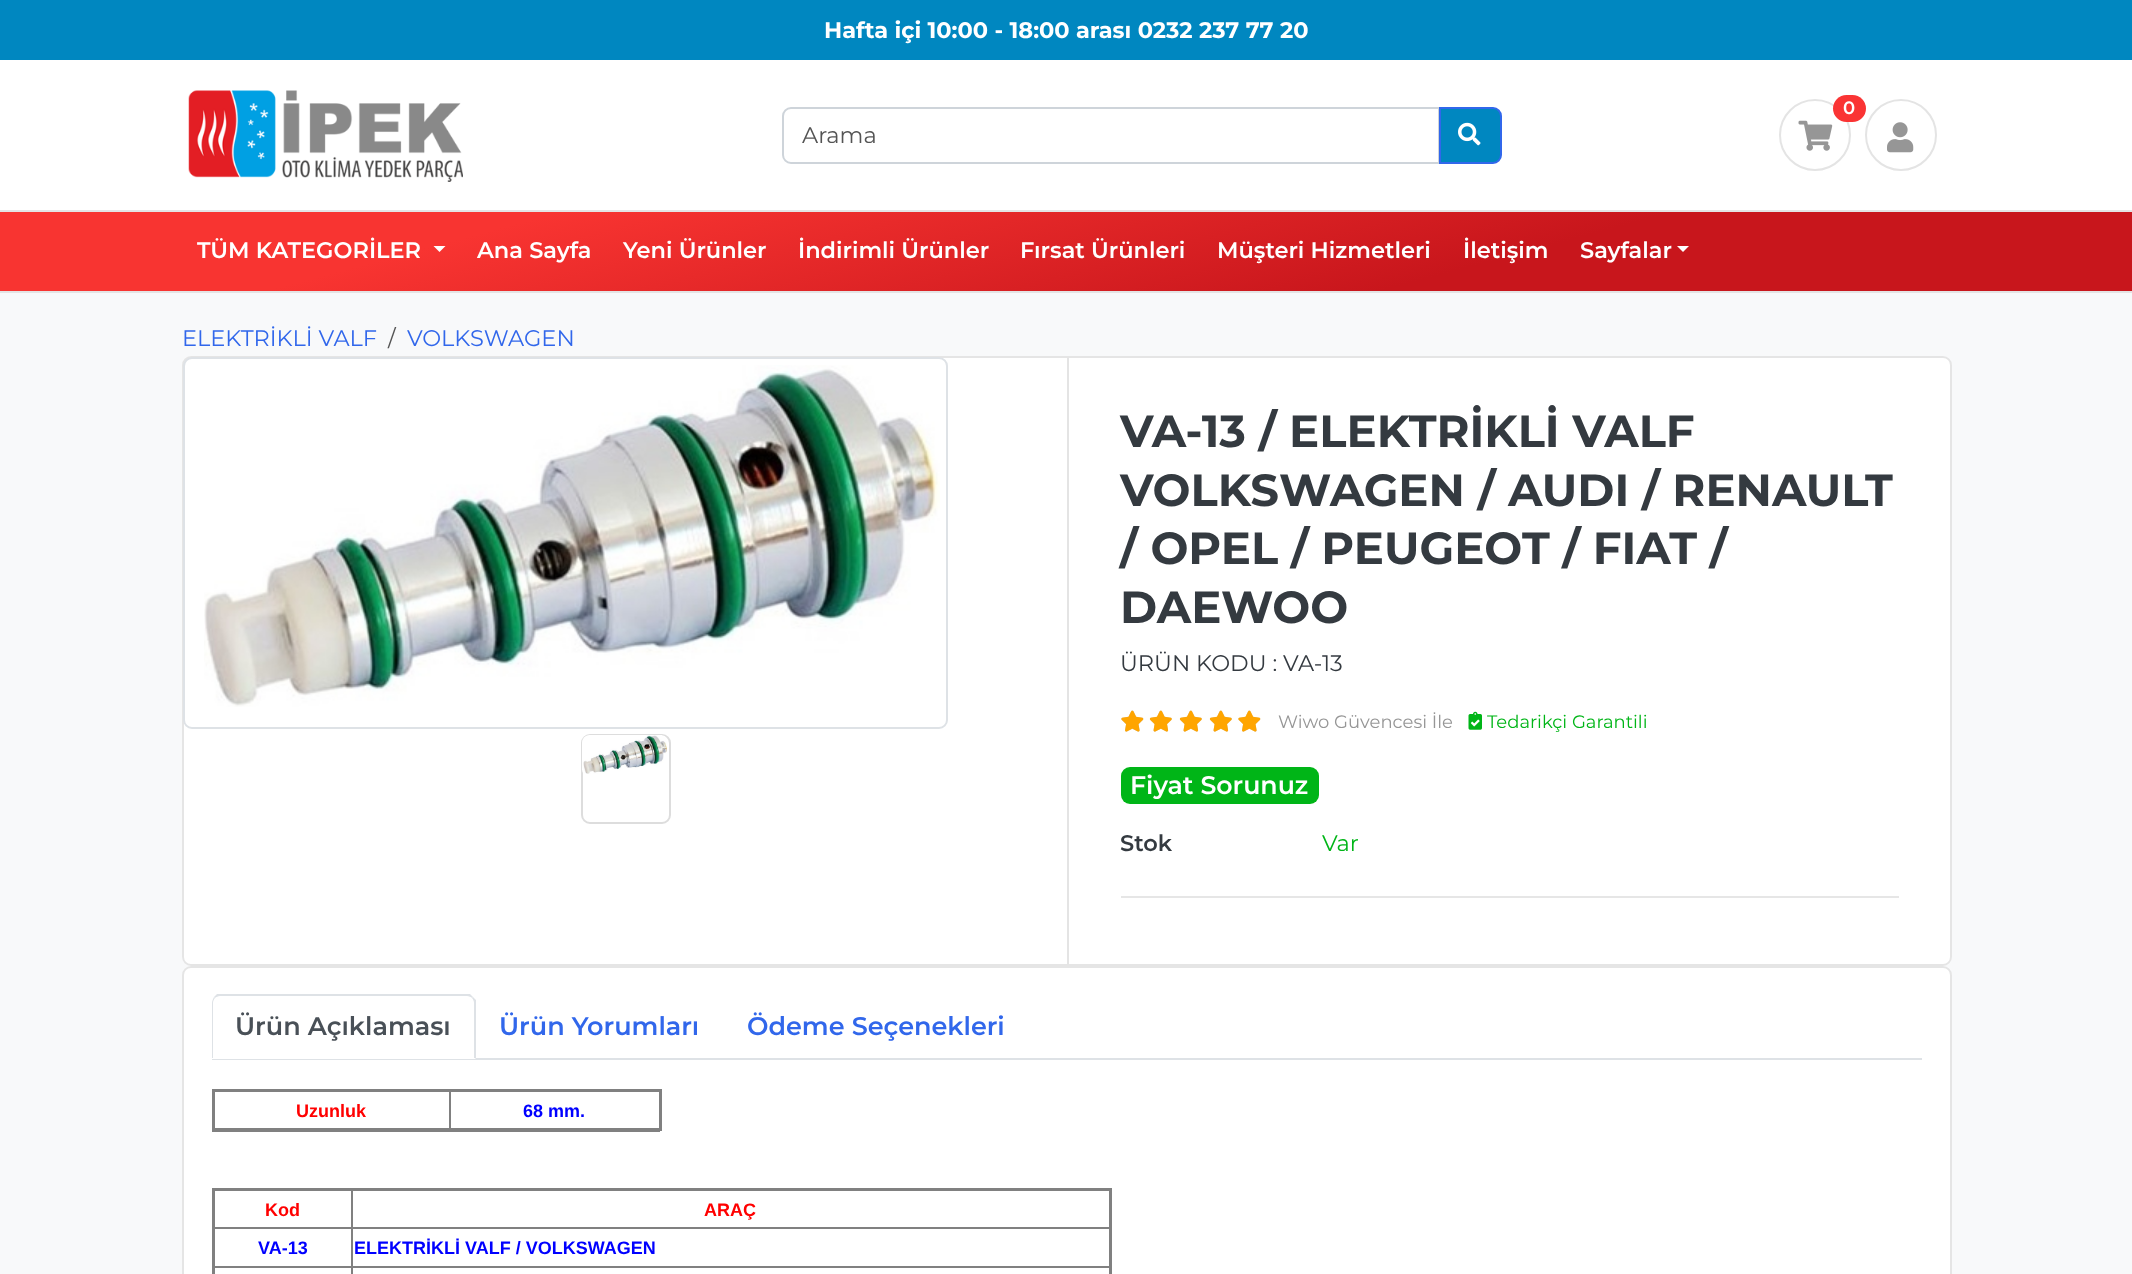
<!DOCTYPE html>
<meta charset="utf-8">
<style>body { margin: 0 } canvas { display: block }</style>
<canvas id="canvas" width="2132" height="1274"></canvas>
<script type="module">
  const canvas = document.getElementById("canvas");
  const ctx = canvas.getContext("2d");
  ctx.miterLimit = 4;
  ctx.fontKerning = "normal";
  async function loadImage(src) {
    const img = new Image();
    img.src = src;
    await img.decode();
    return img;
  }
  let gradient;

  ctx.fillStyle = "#ffffff";
  ctx.fillRect(0, 0, 2132, 1274);
  ctx.fillStyle = "#0087c0";
  ctx.fillRect(0, 0, 2132, 60);
  ctx.font = "bold 22.5px Montserrat";
  ctx.fillStyle = "#ffffff";
  ctx.fillText("Hafta içi 10:00 - 18:00 arası 0232 237 77 20", 824, 38);
  ctx.fillStyle = "#e4e4e4";
  ctx.fillRect(0, 210, 2132, 2);
  ctx.drawImage(await loadImage("img1.png"), 188, 90, 275, 92);
  ctx.beginPath();
  ctx.arc(1815, 135, 35, 0, Math.PI * 2);
  ctx.strokeStyle = "#e4e4e4";
  ctx.lineWidth = 2;
  ctx.stroke();
  ctx.drawImage(await loadImage("img2.png"), 1798, 120, 35, 31);
  ctx.fillStyle = "#fa3434";
  ctx.beginPath();
  ctx.roundRect(1833, 95, 33, 27, 13.5);
  ctx.fill();
  ctx.font = "600 18px Montserrat";
  ctx.fillStyle = "#ffffff";
  ctx.fillText("0", 1843, 114);
  ctx.beginPath();
  ctx.arc(1901, 135, 35, 0, Math.PI * 2);
  ctx.stroke();
  ctx.drawImage(await loadImage("img3.png"), 1887, 122, 27, 31);
  ctx.beginPath();
  ctx.roundRect(783, 108, 656, 55, [8, 0, 0, 8]);
  ctx.strokeStyle = "#ced4da";
  ctx.stroke();
  ctx.font = "22.5px Montserrat";
  ctx.fillStyle = "#545454";
  ctx.fillText("Arama", 802, 143);
  ctx.fillStyle = "#0087c0";
  ctx.beginPath();
  ctx.roundRect(1440, 108, 61, 55, [0, 8, 8, 0]);
  ctx.fill();
  ctx.strokeStyle = "#3167eb";
  ctx.stroke();
  ctx.drawImage(await loadImage("img4.png"), 1458, 122, 23, 24);
  gradient = ctx.createLinearGradient(985, -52, 1148, 555);
  gradient.addColorStop(0, "#f83431");
  gradient.addColorStop(0.23, "#f83431");
  gradient.addColorStop(0.69, "#c8161c");
  gradient.addColorStop(1, "#c8161c");
  ctx.fillStyle = gradient;
  ctx.fillRect(0, 212, 2132, 79);
  ctx.fillStyle = "#e4e4e4";
  ctx.fillRect(0, 291, 2132, 2);
  ctx.font = "600 22.5px Montserrat";
  ctx.fillStyle = "#ffffff";
  ctx.fillText("TÜM KATEGORİLER", 197, 258);
  ctx.beginPath();
  ctx.moveTo(433.5, 246);
  ctx.lineTo(445.5, 246);
  ctx.lineTo(439.5, 252);
  ctx.closePath();
  ctx.fill();
  ctx.fillText("Ana Sayfa", 477, 258);
  ctx.fillText("Yeni Ürünler", 623, 258);
  ctx.fillText("İndirimli Ürünler", 798, 258);
  ctx.fillText("Fırsat Ürünleri", 1020, 258);
  ctx.fillText("Müşteri Hizmetleri", 1217, 258);
  ctx.fillText("İletişim", 1463, 258);
  ctx.fillText("Sayfalar", 1580, 258);
  ctx.beginPath();
  ctx.moveTo(1677, 246);
  ctx.lineTo(1689, 246);
  ctx.lineTo(1683, 252);
  ctx.closePath();
  ctx.fill();
  ctx.fillStyle = "#f8f9fa";
  ctx.fillRect(0, 293, 2132, 981);
  ctx.font = "22.5px Montserrat";
  ctx.fillStyle = "#3167eb";
  ctx.fillText("ELEKTRİKLİ VALF", 182, 346);
  ctx.fillStyle = "#545454";
  ctx.fillText("/", 388, 346);
  ctx.fillStyle = "#3167eb";
  ctx.fillText("VOLKSWAGEN", 407, 346);
  ctx.fillStyle = "#ffffff";
  ctx.beginPath();
  ctx.roundRect(182, 356, 1770, 610, 9);
  ctx.fill();
  ctx.beginPath();
  ctx.roundRect(183, 357, 1768, 608, 8);
  ctx.strokeStyle = "rgba(0, 0, 0, 0.1)";
  ctx.stroke();
  ctx.beginPath();
  ctx.roundRect(184, 358, 763, 370, 8);
  ctx.fill();
  ctx.strokeStyle = "#dee2e6";
  ctx.stroke();
  ctx.drawImage(await loadImage("img5.png"), 204, 365, 736, 342);
  ctx.beginPath();
  ctx.roundRect(582, 735, 88, 88, 8);
  ctx.strokeStyle = "#dddddd";
  ctx.stroke();
  ctx.drawImage(await loadImage("img6.png"), 582, 735, 85, 39);
  ctx.fillStyle = "#e4e4e4";
  ctx.fillRect(1067, 357, 2, 608);
  ctx.font = "bold 45px Montserrat";
  ctx.fillStyle = "#343a40";
  ctx.fillText("VA-13 / ELEKTRİKLİ VALF", 1120, 447);
  ctx.fillText("VOLKSWAGEN / AUDI / RENAULT", 1120, 506);
  ctx.fillText("/ OPEL / PEUGEOT / FIAT /", 1120, 564);
  ctx.fillText("DAEWOO", 1120, 623);
  ctx.font = "22.5px Montserrat";
  ctx.fillText("ÜRÜN KODU : VA-13", 1120, 671);
  ctx.drawImage(await loadImage("img7.png"), 1121, 710, 23, 22);
  ctx.drawImage(await loadImage("img8.png"), 1150, 710, 22, 22);
  ctx.drawImage(await loadImage("img8.png"), 1180, 710, 22, 22);
  ctx.drawImage(await loadImage("img8.png"), 1210, 710, 22, 22);
  ctx.drawImage(await loadImage("img7.png"), 1238, 710, 23, 22);
  ctx.drawImage(await loadImage("img9.png"), 1121, 710, 23, 22);
  ctx.drawImage(await loadImage("img10.png"), 1149, 710, 23, 22);
  ctx.drawImage(await loadImage("img10.png"), 1179, 710, 23, 22);
  ctx.drawImage(await loadImage("img10.png"), 1209, 710, 23, 22);
  ctx.drawImage(await loadImage("img9.png"), 1238, 710, 23, 22);
  ctx.font = "18px Montserrat";
  ctx.fillStyle = "#969696";
  ctx.fillText("Wiwo Güvencesi İle", 1278, 728);
  ctx.drawImage(await loadImage("img11.png"), 1468, 711, 14, 19);
  ctx.fillStyle = "#00b517";
  ctx.fillText("Tedarikçi Garantili", 1487, 728);
  ctx.beginPath();
  ctx.roundRect(1121, 767, 198, 37, 9);
  ctx.fill();
  ctx.font = "600 25.25px Montserrat";
  ctx.fillStyle = "#ffffff";
  ctx.fillText("Fiyat Sorunuz", 1130, 794);
  ctx.font = "600 22.5px Montserrat";
  ctx.fillStyle = "#343a40";
  ctx.fillText("Stok", 1120, 851);
  ctx.font = "22.5px Montserrat";
  ctx.fillStyle = "#00b517";
  ctx.fillText("Var", 1322, 851);
  ctx.fillStyle = "#e6e6e6";
  ctx.fillRect(1121, 896, 778, 2);
  ctx.fillStyle = "#ffffff";
  ctx.beginPath();
  ctx.roundRect(182, 966, 1770, 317, 9);
  ctx.fill();
  ctx.beginPath();
  ctx.roundRect(183, 967, 1768, 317, 8);
  ctx.strokeStyle = "rgba(0, 0, 0, 0.1)";
  ctx.stroke();
  ctx.fillStyle = "#dee2e6";
  ctx.fillRect(212, 1058, 1710, 2);
  ctx.fillStyle = "#ffffff";
  ctx.beginPath();
  ctx.roundRect(212, 995, 264, 64, [9, 9, 0, 0]);
  ctx.fill();
  ctx.fillStyle = "#dee2e6";
  ctx.beginPath();
  ctx.moveTo(220, 996);
  ctx.bezierCurveTo(218, 996, 216, 997, 215, 998);
  ctx.lineTo(214, 997);
  ctx.lineTo(217, 994);
  ctx.lineTo(470, 994);
  ctx.lineTo(473, 997);
  ctx.lineTo(472, 998);
  ctx.bezierCurveTo(471, 997, 469, 996, 467, 996);
  ctx.closePath();
  ctx.fill();
  ctx.beginPath();
  ctx.moveTo(476, 1000);
  ctx.lineTo(476, 1059);
  ctx.lineTo(474, 1058);
  ctx.lineTo(474, 1003);
  ctx.bezierCurveTo(474, 1001, 473, 999, 472, 998);
  ctx.lineTo(473, 997);
  ctx.closePath();
  ctx.fill();
  ctx.fillStyle = "#ffffff";
  ctx.beginPath();
  ctx.moveTo(476, 1059);
  ctx.lineTo(474, 1058);
  ctx.lineTo(213, 1058);
  ctx.lineTo(212, 1059);
  ctx.closePath();
  ctx.fill();
  ctx.fillStyle = "#dee2e6";
  ctx.beginPath();
  ctx.moveTo(212, 1058);
  ctx.lineTo(212, 1003);
  ctx.bezierCurveTo(212, 1001, 213, 999, 214, 997);
  ctx.lineTo(215, 998);
  ctx.bezierCurveTo(214, 999, 213, 1001, 213, 1003);
  ctx.lineTo(213, 1058);
  ctx.closePath();
  ctx.fill();
  ctx.font = "600 25.5px Montserrat";
  ctx.fillStyle = "#495057";
  ctx.fillText("Ürün Açıklaması", 235, 1035);
  ctx.fillStyle = "#3167eb";
  ctx.fillText("Ürün Yorumları", 499, 1035);
  ctx.fillText("Ödeme Seçenekleri", 747, 1035);
  ctx.fillStyle = "#808080";
  ctx.fillRect(449, 1089, 2, 42);
  ctx.fillRect(212, 1089, 450, 3);
  ctx.fillRect(659, 1089, 3, 42);
  ctx.fillRect(212, 1128, 450, 3);
  ctx.fillRect(212, 1089, 3, 42);
  ctx.font = "bold 18px Liberation Sans";
  ctx.fillStyle = "#ff0000";
  ctx.fillText("Uzunluk", 296, 1117);
  ctx.fillStyle = "#808080";
  ctx.fillRect(212, 1131, 448, 1);
  ctx.fillStyle = "#0000ff";
  ctx.fillText("68 mm.", 523, 1117);
  ctx.fillStyle = "#808080";
  ctx.fillRect(351, 1227, 759, 2);
  ctx.fillRect(351, 1266, 759, 2);
  ctx.fillRect(351, 1266, 2, 8);
  ctx.fillRect(212, 1266, 141, 2);
  ctx.fillRect(351, 1227, 2, 41);
  ctx.fillRect(212, 1227, 141, 2);
  ctx.fillRect(351, 1188, 2, 41);
  ctx.fillRect(212, 1188, 900, 3);
  ctx.fillRect(1109, 1188, 3, 86);
  ctx.fillRect(212, 1188, 3, 86);
  ctx.fillStyle = "#ff0000";
  ctx.fillText("Kod", 265, 1216);
  ctx.fillText("ARAÇ", 704, 1216);
  ctx.fillStyle = "#0000ff";
  ctx.fillText("VA-13", 258, 1254);
  ctx.fillText("ELEKTRİKLİ VALF / VOLKSWAGEN", 354, 1254);
</script>
